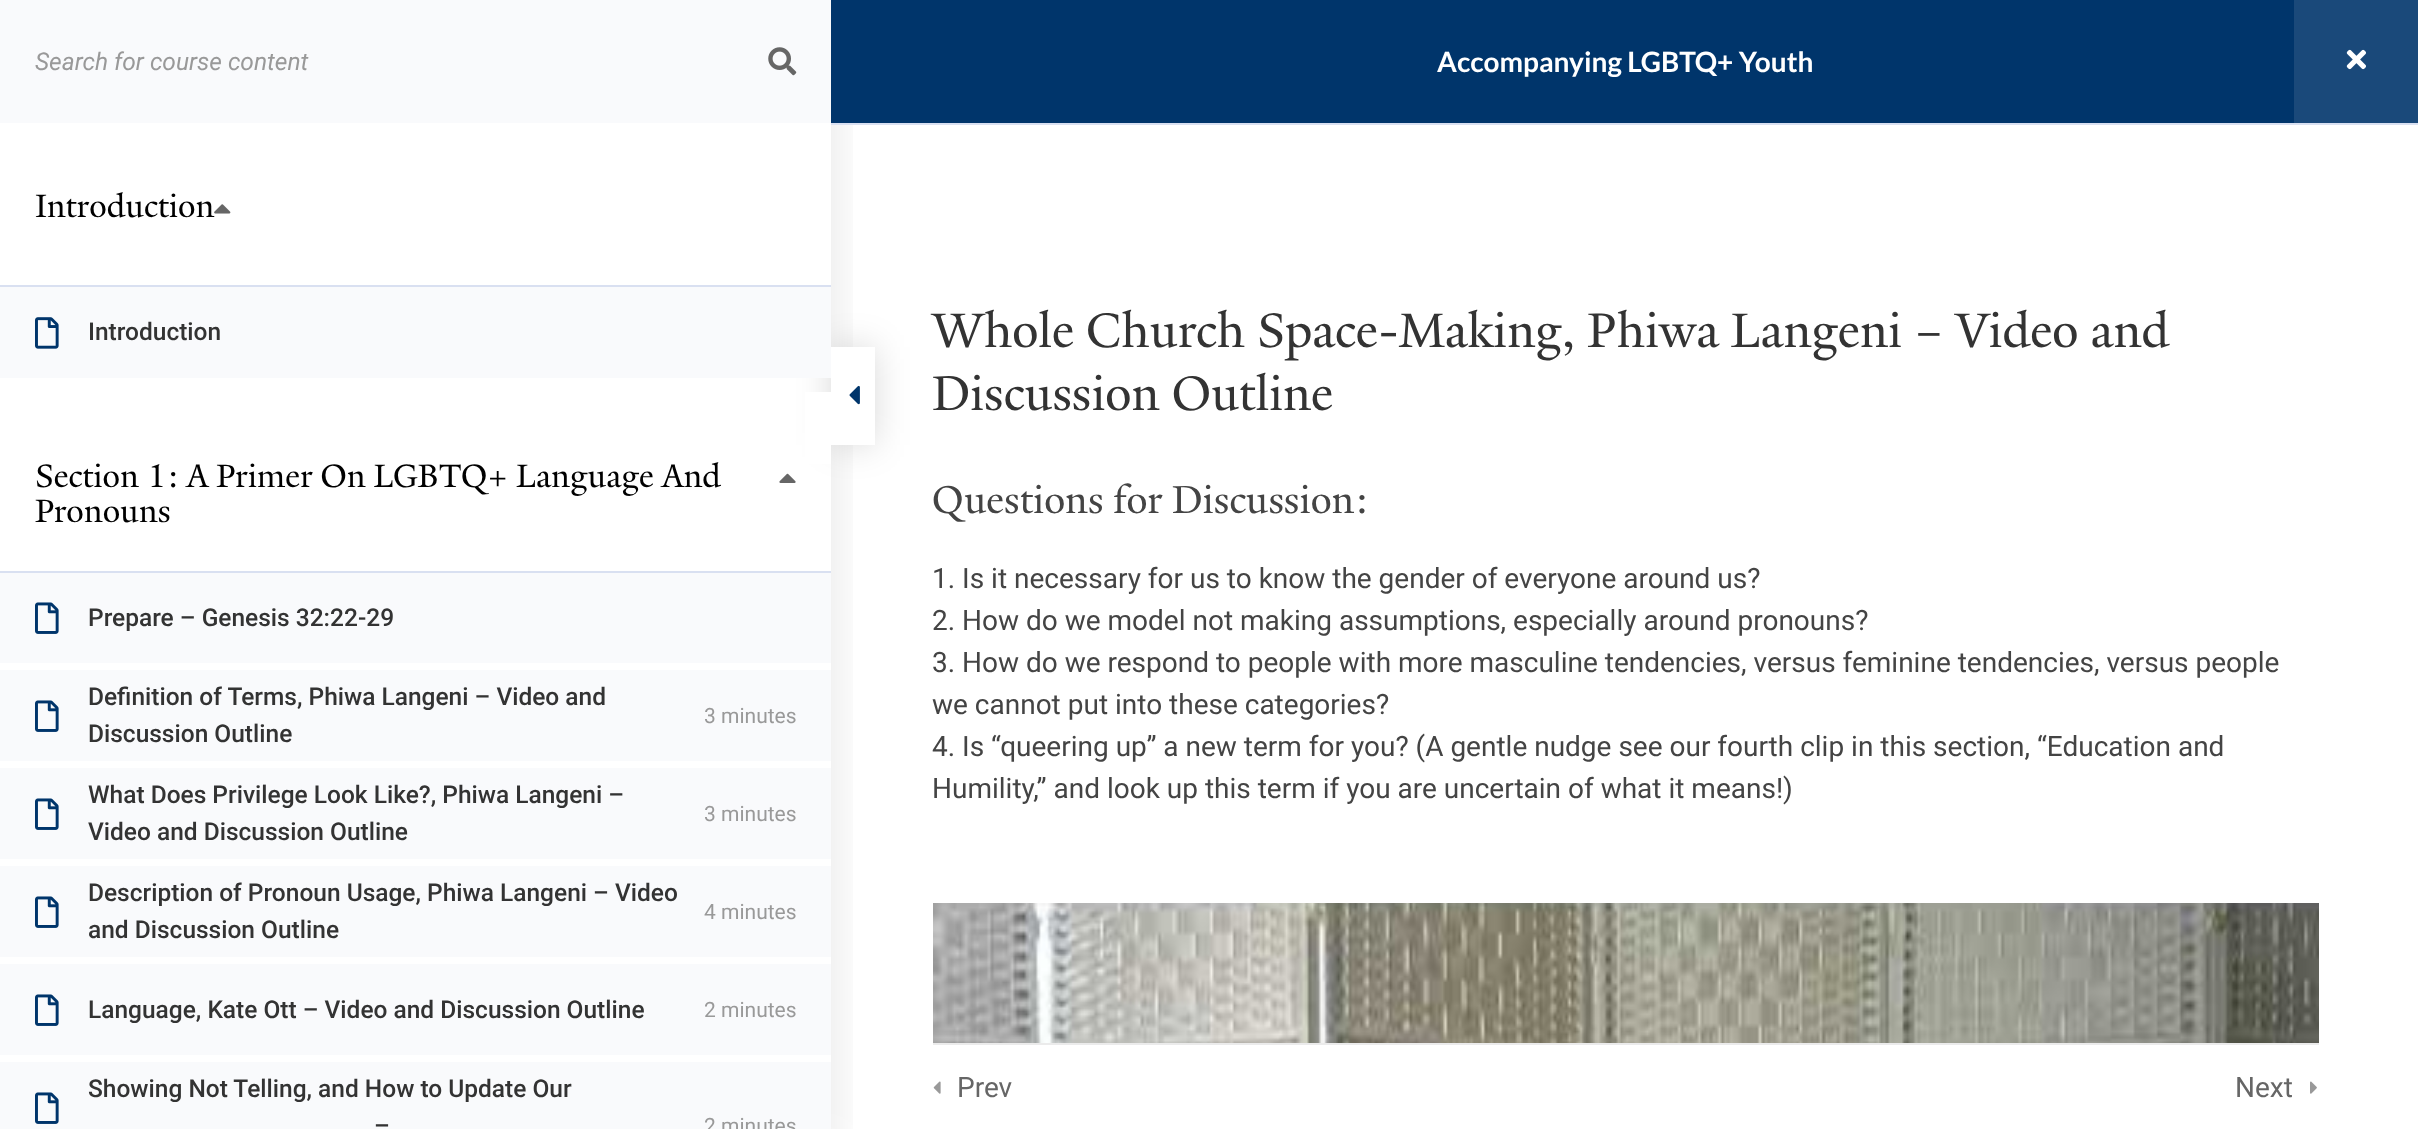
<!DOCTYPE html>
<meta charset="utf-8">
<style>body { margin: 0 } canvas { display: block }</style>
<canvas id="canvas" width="2418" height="1129"></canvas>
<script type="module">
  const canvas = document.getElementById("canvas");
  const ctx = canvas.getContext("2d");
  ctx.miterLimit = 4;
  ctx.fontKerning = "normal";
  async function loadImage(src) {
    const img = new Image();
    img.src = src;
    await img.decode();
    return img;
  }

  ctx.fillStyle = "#ffffff";
  ctx.fillRect(0, 0, 2418, 1129);
  ctx.save();
  ctx.beginPath();
  ctx.rect(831, 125, 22, 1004);
  ctx.clip();
  ctx.fillStyle = "rgba(0, 0, 0, 0.1)";
  ctx.filter = "blur(26px)";
  ctx.beginPath();
  ctx.rect(0, 26, 831, 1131);
  ctx.fill();
  ctx.filter = "none";
  ctx.restore();
  ctx.fillStyle = "#f9fafc";
  ctx.fillRect(0, 0, 831, 123);
  ctx.font = "italic 24.5px Roboto";
  ctx.fillStyle = "#999999";
  ctx.fillText("Search for course content", 35, 70);
  ctx.drawImage(await loadImage("img1.png"), 768, 47, 29, 29);
  ctx.fillStyle = "#d9e0f1";
  ctx.fillRect(0, 285, 831, 2);
  ctx.drawImage(await loadImage("img2.png"), 214, 204, 17, 10);
  ctx.font = "35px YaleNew";
  ctx.fillStyle = "#000000";
  ctx.fillText("Introduction", 35, 217);
  ctx.fillStyle = "rgba(0, 0, 0, 0.15)";
  ctx.filter = "blur(17.5px)";
  ctx.beginPath();
  ctx.rect(831, 347, 44, 98);
  ctx.fill();
  ctx.filter = "none";
  ctx.fillStyle = "#f9fafc";
  ctx.fillRect(0, 287, 831, 91);
  ctx.drawImage(await loadImage("img3.png"), 35, 317, 24, 32);
  ctx.font = "500 24.5px Roboto";
  ctx.fillStyle = "#333333";
  ctx.fillText("Introduction", 88, 340);
  ctx.fillStyle = "#ffffff";
  ctx.fillRect(805, 392, 26, 72);
  ctx.fillStyle = "#d9e0f1";
  ctx.fillRect(0, 571, 831, 2);
  ctx.font = "35px YaleNew";
  ctx.fillStyle = "#000000";
  ctx.fillText("Section 1: A Primer On LGBTQ+ Language And", 35, 487);
  ctx.fillText("Pronouns", 35, 522);
  ctx.drawImage(await loadImage("img4.png"), 779, 473, 17, 10);
  ctx.fillStyle = "#f9fafc";
  ctx.fillRect(0, 573, 831, 90);
  ctx.drawImage(await loadImage("img5.png"), 35, 602, 24, 32);
  ctx.font = "500 24.5px Roboto";
  ctx.fillStyle = "#333333";
  ctx.fillText("Prepare – Genesis 32:22-29", 88, 626);
  ctx.fillStyle = "#f9fafc";
  ctx.fillRect(0, 670, 831, 91);
  ctx.drawImage(await loadImage("img5.png"), 35, 700, 24, 32);
  ctx.fillStyle = "#333333";
  ctx.fillText("Definition of Terms, Phiwa Langeni – Video and", 88, 705);
  ctx.fillText("Discussion Outline", 88, 742);
  ctx.font = "21px Roboto";
  ctx.fillStyle = "#999999";
  ctx.fillText("3 minutes", 704, 723);
  ctx.fillStyle = "#f9fafc";
  ctx.fillRect(0, 768, 831, 91);
  ctx.drawImage(await loadImage("img5.png"), 35, 798, 24, 32);
  ctx.font = "500 24.5px Roboto";
  ctx.fillStyle = "#333333";
  ctx.fillText("What Does Privilege Look Like?, Phiwa Langeni –", 88, 803);
  ctx.fillText("Video and Discussion Outline", 88, 840);
  ctx.font = "21px Roboto";
  ctx.fillStyle = "#999999";
  ctx.fillText("3 minutes", 704, 821);
  ctx.fillStyle = "#f9fafc";
  ctx.fillRect(0, 866, 831, 91);
  ctx.drawImage(await loadImage("img5.png"), 35, 896, 24, 32);
  ctx.font = "500 24.5px Roboto";
  ctx.fillStyle = "#333333";
  ctx.fillText("Description of Pronoun Usage, Phiwa Langeni – Video", 88, 901);
  ctx.fillText("and Discussion Outline", 88, 938);
  ctx.font = "21px Roboto";
  ctx.fillStyle = "#999999";
  ctx.fillText("4 minutes", 704, 919);
  ctx.fillStyle = "#f9fafc";
  ctx.fillRect(0, 964, 831, 91);
  ctx.drawImage(await loadImage("img5.png"), 35, 994, 24, 32);
  ctx.font = "500 24.5px Roboto";
  ctx.fillStyle = "#333333";
  ctx.fillText("Language, Kate Ott – Video and Discussion Outline", 88, 1018);
  ctx.font = "21px Roboto";
  ctx.fillStyle = "#999999";
  ctx.fillText("2 minutes", 704, 1017);
  ctx.fillStyle = "#f9fafc";
  ctx.fillRect(0, 1062, 831, 67);
  ctx.drawImage(await loadImage("img5.png"), 35, 1092, 24, 32);
  ctx.font = "500 24.5px Roboto";
  ctx.fillStyle = "#333333";
  ctx.fillText("Showing Not Telling, and How to Update Our", 88, 1097);
  ctx.fillText("–", 374, 1134);
  ctx.font = "21px Roboto";
  ctx.fillStyle = "#999999";
  ctx.fillText("2 minutes", 704, 1133);
  ctx.fillStyle = "#00356b";
  ctx.fillRect(831, 0, 1463, 123);
  ctx.fillStyle = "#d9e0f1";
  ctx.fillRect(831, 123, 1587, 2);
  ctx.font = "bold 28px Lato";
  ctx.fillStyle = "#ffffff";
  ctx.fillText("Accompanying LGBTQ+ Youth", 1437, 72);
  ctx.fillStyle = "#1a497a";
  ctx.fillRect(2294, 0, 124, 123);
  ctx.drawImage(await loadImage("img6.png"), 2346, 49, 20, 21);
  ctx.fillStyle = "#ffffff";
  ctx.fillRect(831, 347, 44, 98);
  ctx.drawImage(await loadImage("img7.png"), 849, 385, 11, 20);
  ctx.font = "52.5px YaleNew";
  ctx.fillStyle = "#333333";
  ctx.fillText("Whole Church Space-Making, Phiwa Langeni – Video and", 932, 347);
  ctx.fillText("Discussion Outline", 932, 410);
  ctx.font = "42px YaleNew";
  ctx.fillStyle = "#444444";
  ctx.fillText("Questions for Discussion:", 932, 513);
  ctx.font = "28px Roboto";
  ctx.fillText("1. Is it necessary for us to know the gender of everyone around us?", 932, 588);
  ctx.fillText("2. How do we model not making assumptions, especially around pronouns?", 932, 630);
  ctx.fillText("3. How do we respond to people with more masculine tendencies, versus feminine tendencies, versus people", 932, 672);
  ctx.fillText("we cannot put into these categories?", 932, 714);
  ctx.fillText("4. Is “queering up” a new term for you? (A gentle nudge see our fourth clip in this section, “Education and", 932, 756);
  ctx.fillText("Humility,” and look up this term if you are uncertain of what it means!)", 932, 798);
  ctx.drawImage(await loadImage("img8.png"), 933, 903, 1386, 140);
  ctx.fillStyle = "#ebebeb";
  ctx.fillRect(933, 1043, 1386, 2);
  ctx.drawImage(await loadImage("img9.png"), 933, 1081, 8, 13);
  ctx.fillStyle = "#666666";
  ctx.fillText("Prev", 957, 1097);
  ctx.fillText("Next", 2235, 1097);
  ctx.drawImage(await loadImage("img10.png"), 2310, 1081, 7, 13);
</script>
